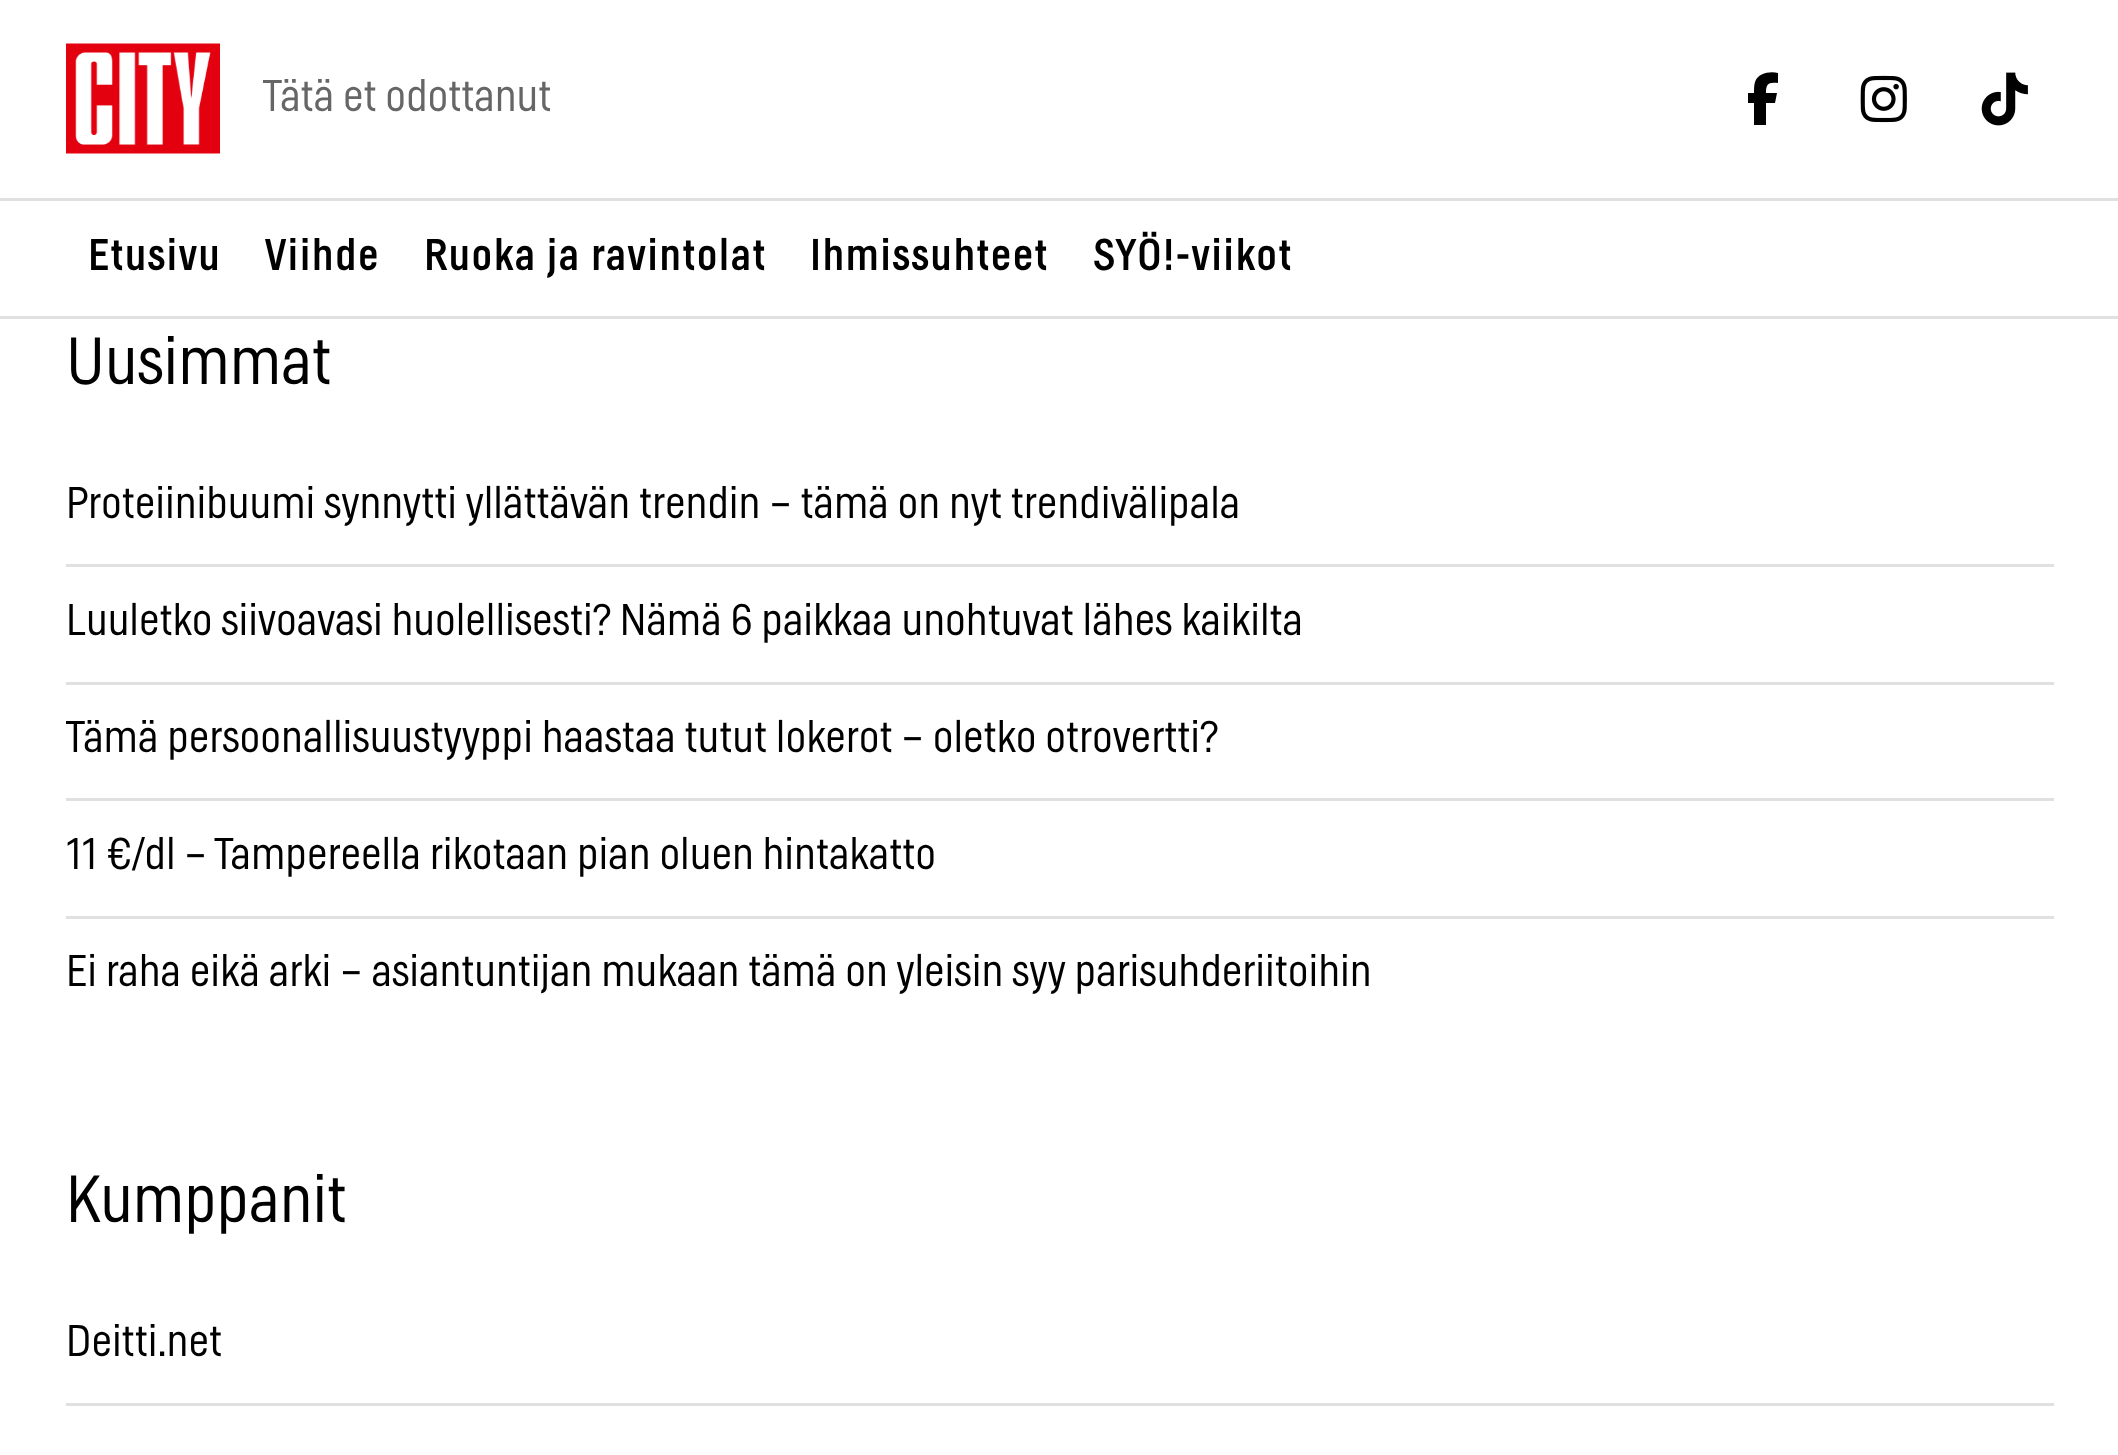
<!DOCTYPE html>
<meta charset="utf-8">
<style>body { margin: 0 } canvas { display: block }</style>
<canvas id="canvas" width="2118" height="1455"></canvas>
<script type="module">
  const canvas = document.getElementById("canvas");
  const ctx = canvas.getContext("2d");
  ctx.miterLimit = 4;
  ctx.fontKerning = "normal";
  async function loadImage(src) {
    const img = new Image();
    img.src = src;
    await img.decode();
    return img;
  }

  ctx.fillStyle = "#ffffff";
  ctx.fillRect(0, 0, 2118, 1455);
  ctx.fillStyle = "#e0e0e0";
  ctx.fillRect(0, 316, 2118, 3);
  ctx.fillRect(0, 198, 2118, 3);
  ctx.drawImage(await loadImage("img1.png"), 66, 43, 154, 111);
  ctx.font = "200 44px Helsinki";
  ctx.fillStyle = "#666666";
  ctx.fillText("Tätä et odottanut", 263, 111);
  ctx.fillStyle = "#000000";
  ctx.beginPath();
  ctx.moveTo(1754, 103);
  ctx.lineTo(1754, 125);
  ctx.lineTo(1766, 125);
  ctx.lineTo(1766, 103);
  ctx.lineTo(1775, 103);
  ctx.lineTo(1777, 93);
  ctx.lineTo(1766, 93);
  ctx.bezierCurveTo(1766, 84, 1768, 82, 1778, 83);
  ctx.lineTo(1778, 73);
  ctx.bezierCurveTo(1770, 71, 1758, 73, 1755, 82);
  ctx.bezierCurveTo(1754, 85, 1754, 89, 1754, 93);
  ctx.lineTo(1748, 93);
  ctx.lineTo(1748, 103);
  ctx.closePath();
  ctx.fill();
  ctx.drawImage(await loadImage("img2.png"), 1860, 75, 47, 48);
  ctx.drawImage(await loadImage("img3.png"), 1981, 72, 47, 54);
  ctx.letterSpacing = "1.4px";
  ctx.font = "44px Helsinki";
  ctx.fillText("Etusivu", 88, 270);
  ctx.fillText("Viihde", 265, 270);
  ctx.fillText("Ruoka ja ravintolat", 424, 270);
  ctx.fillText("Ihmissuhteet", 810, 270);
  ctx.fillText("SYÖ!-viikot", 1093, 270);
  ctx.letterSpacing = "0px";
  ctx.font = "200 66px Helsinki";
  ctx.fillText("Uusimmat", 66, 384);
  ctx.fillStyle = "#e0e0e0";
  ctx.fillRect(66, 564, 1988, 3);
  ctx.font = "200 44px Helsinki";
  ctx.fillStyle = "#000000";
  ctx.fillText("Proteiinibuumi synnytti yllättävän trendin – tämä on nyt trendivälipala", 66, 518);
  ctx.fillStyle = "#e0e0e0";
  ctx.fillRect(66, 682, 1988, 3);
  ctx.fillStyle = "#000000";
  ctx.fillText("Luuletko siivoavasi huolellisesti? Nämä 6 paikkaa unohtuvat lähes kaikilta", 66, 635);
  ctx.fillStyle = "#e0e0e0";
  ctx.fillRect(66, 798, 1988, 3);
  ctx.fillStyle = "#000000";
  ctx.fillText("Tämä persoonallisuustyyppi haastaa tutut lokerot – oletko otrovertti?", 66, 752);
  ctx.fillStyle = "#e0e0e0";
  ctx.fillRect(66, 916, 1988, 3);
  ctx.fillStyle = "#000000";
  ctx.fillText("11 €/dl – Tampereella rikotaan pian oluen hintakatto", 66, 869);
  ctx.fillText("Ei raha eikä arki – asiantuntijan mukaan tämä on yleisin syy parisuhderiitoihin", 66, 986);
  ctx.font = "200 66px Helsinki";
  ctx.fillText("Kumppanit", 66, 1222);
  ctx.fillStyle = "#e0e0e0";
  ctx.fillRect(66, 1403, 1988, 3);
  ctx.font = "200 44px Helsinki";
  ctx.fillStyle = "#000000";
  ctx.fillText("Deitti.net", 66, 1356);
</script>
